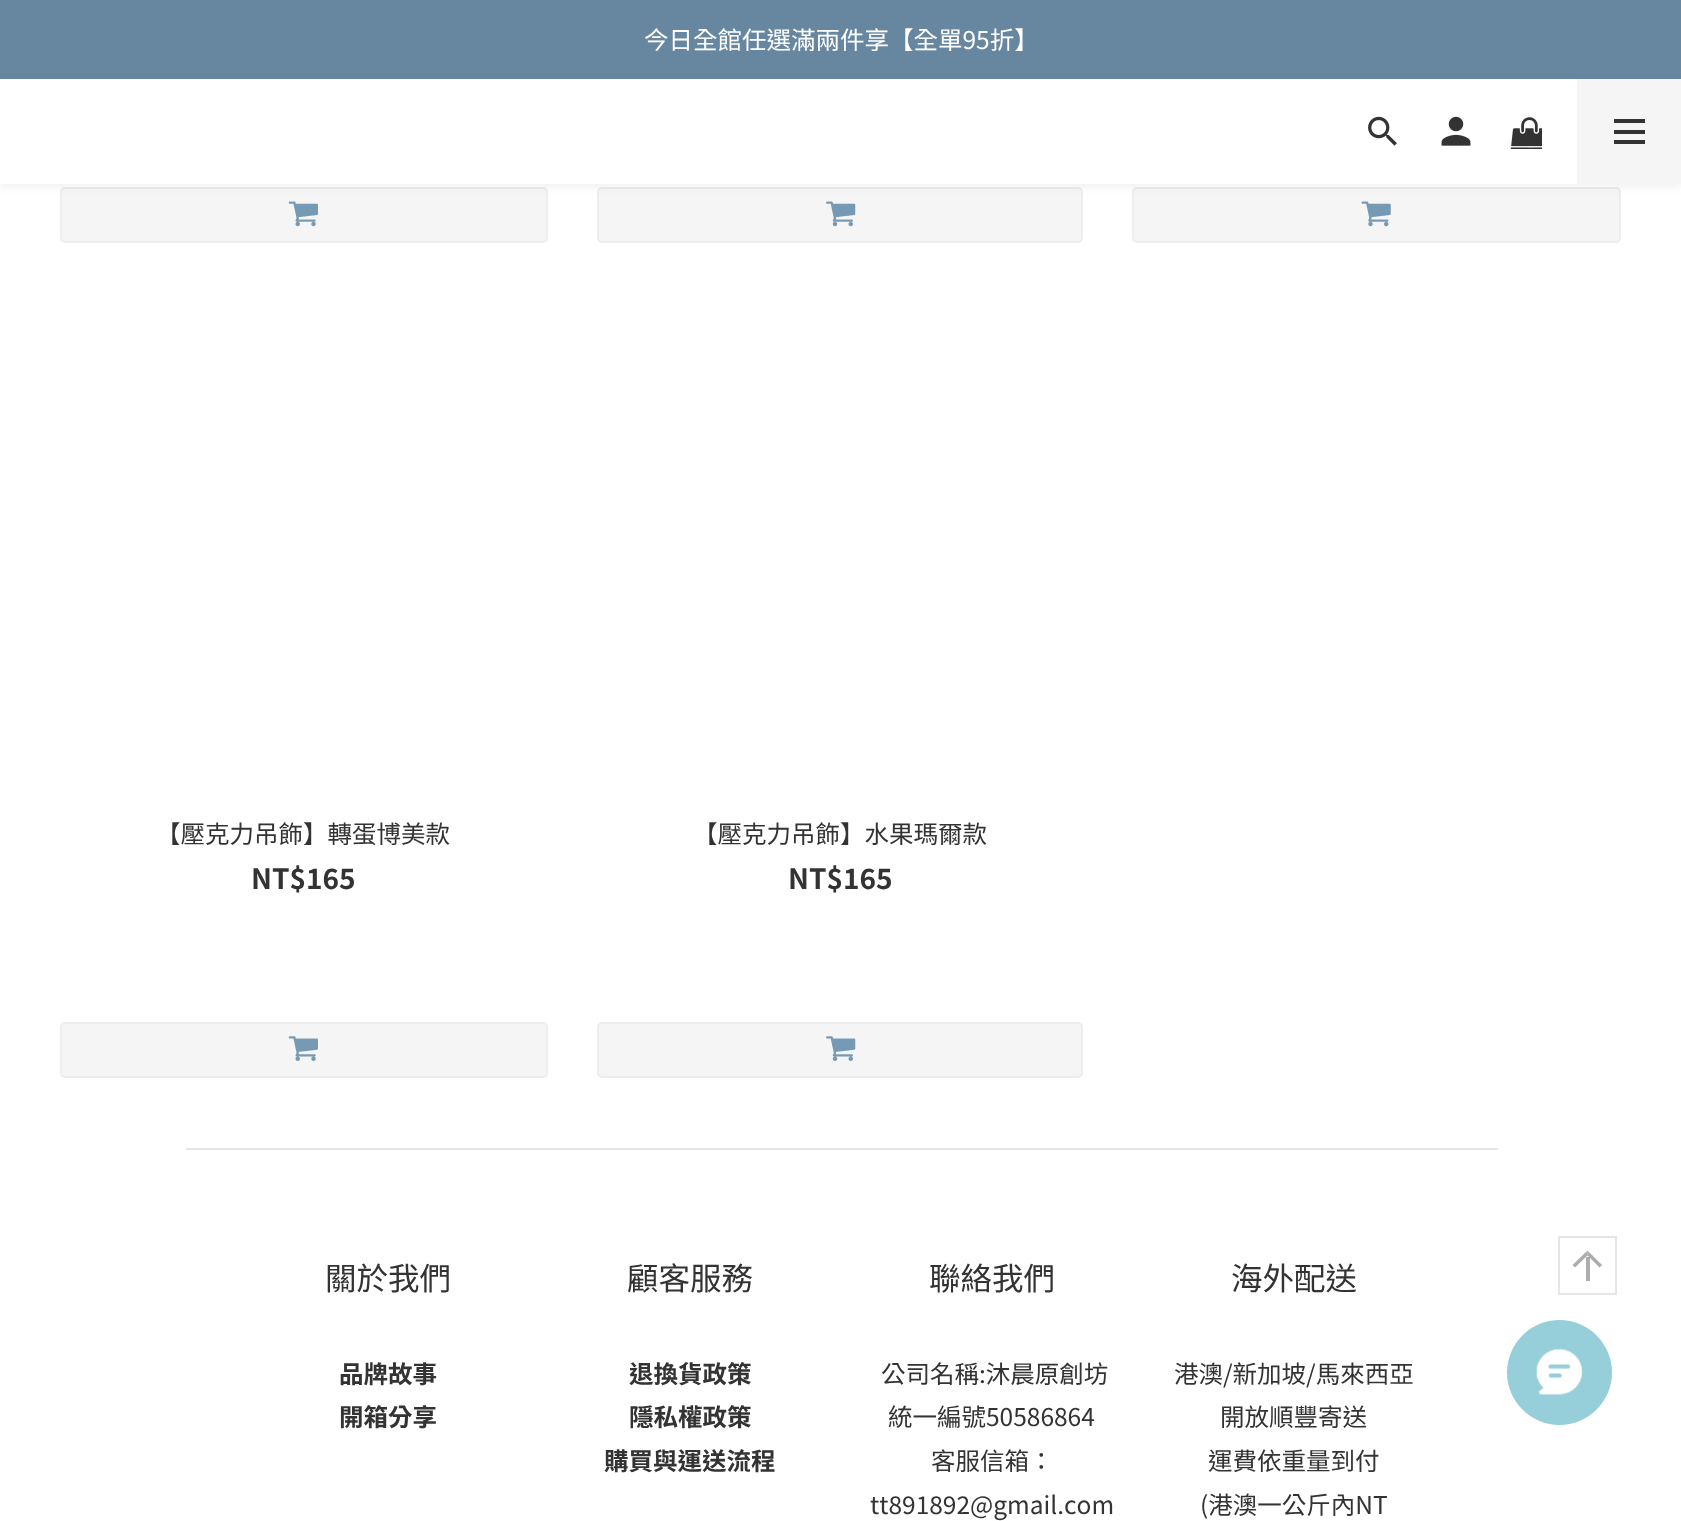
<!DOCTYPE html>
<meta charset="utf-8">
<style>body { margin: 0 } canvas { display: block }</style>
<canvas id="canvas" width="1681" height="1521"></canvas>
<script type="module">
  const canvas = document.getElementById("canvas");
  const ctx = canvas.getContext("2d");
  ctx.miterLimit = 4;
  ctx.fontKerning = "none";
  async function loadImage(src) {
    const img = new Image();
    img.src = src;
    await img.decode();
    return img;
  }

  ctx.fillStyle = "#ffffff";
  ctx.fillRect(0, 0, 1681, 1521);
  ctx.fillStyle = "#6787a1";
  ctx.fillRect(0, 0, 1681, 79);
  ctx.font = "24.5px Noto Sans TC";
  ctx.fillStyle = "#ffffff";
  ctx.fillText("今日全館任選滿兩件享【全單95折】", 644, 49);
  ctx.fillStyle = "#f5f5f5";
  ctx.beginPath();
  ctx.roundRect(60, 187, 488, 56, 5);
  ctx.fill();
  ctx.beginPath();
  ctx.roundRect(61, 188, 486, 54, 4);
  ctx.strokeStyle = "rgba(204, 204, 204, 0.2)";
  ctx.lineWidth = 2;
  ctx.stroke();
  ctx.drawImage(await loadImage("img4.png"), 288, 201, 30, 26);
  ctx.beginPath();
  ctx.roundRect(597, 187, 486, 56, 5);
  ctx.fill();
  ctx.beginPath();
  ctx.roundRect(598, 188, 484, 54, 4);
  ctx.stroke();
  ctx.drawImage(await loadImage("img5.png"), 826, 201, 30, 26);
  ctx.beginPath();
  ctx.roundRect(1132, 187, 489, 56, 5);
  ctx.fill();
  ctx.beginPath();
  ctx.roundRect(1133, 188, 487, 54, 4);
  ctx.stroke();
  ctx.drawImage(await loadImage("img6.png"), 1361, 201, 30, 26);
  ctx.fillStyle = "rgba(0, 0, 0, 0.06)";
  ctx.filter = "blur(5px)";
  ctx.beginPath();
  ctx.rect(0, 82, 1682, 105);
  ctx.fill();
  ctx.filter = "none";
  ctx.fillStyle = "#ffffff";
  ctx.fillRect(0, 79, 1577, 105);
  ctx.drawImage(await loadImage("img1.png"), 1368, 116, 29, 30);
  ctx.drawImage(await loadImage("img2.png"), 1441, 116, 30, 30);
  ctx.drawImage(await loadImage("img3.png"), 1510, 117, 32, 32);
  ctx.fillStyle = "#f5f5f5";
  ctx.fillRect(1577, 79, 104, 105);
  ctx.fillStyle = "#333333";
  ctx.fillRect(1614, 130, 31, 4);
  ctx.fillRect(1614, 119, 31, 4);
  ctx.fillRect(1614, 140, 31, 4);
  ctx.fillText("【壓克力吊飾】轉蛋博美款", 156, 843);
  ctx.font = "bold 28px Noto Sans TC";
  ctx.fillText("NT$165", 251, 889);
  ctx.fillStyle = "#f5f5f5";
  ctx.beginPath();
  ctx.roundRect(60, 1022, 488, 56, 5);
  ctx.fill();
  ctx.beginPath();
  ctx.roundRect(61, 1023, 486, 54, 4);
  ctx.stroke();
  ctx.drawImage(await loadImage("img7.png"), 288, 1036, 30, 25);
  ctx.font = "24.5px Noto Sans TC";
  ctx.fillStyle = "#333333";
  ctx.fillText("【壓克力吊飾】水果瑪爾款", 693, 843);
  ctx.font = "bold 28px Noto Sans TC";
  ctx.fillText("NT$165", 788, 889);
  ctx.fillStyle = "#f5f5f5";
  ctx.beginPath();
  ctx.roundRect(597, 1022, 486, 56, 5);
  ctx.fill();
  ctx.beginPath();
  ctx.roundRect(598, 1023, 484, 54, 4);
  ctx.stroke();
  ctx.drawImage(await loadImage("img8.png"), 826, 1036, 30, 25);
  ctx.fillStyle = "#e6e6e6";
  ctx.fillRect(186, 1148, 1312, 2);
  ctx.font = "31.5px Noto Sans TC";
  ctx.fillStyle = "#333333";
  ctx.fillText("關於我們", 325, 1290);
  ctx.font = "bold 24.5px Noto Sans TC";
  ctx.fillText("品牌故事", 339, 1383);
  ctx.fillText("開箱分享", 339, 1426);
  ctx.font = "31.5px Noto Sans TC";
  ctx.fillText("顧客服務", 627, 1290);
  ctx.font = "bold 24.5px Noto Sans TC";
  ctx.fillText("退換貨政策", 629, 1383);
  ctx.fillText("隱私權政策", 629, 1426);
  ctx.fillText("購買與運送流程", 604, 1470);
  ctx.font = "31.5px Noto Sans TC";
  ctx.fillText("聯絡我們", 929, 1290);
  ctx.font = "24.5px Noto Sans TC";
  ctx.fillText("公司名稱:沐晨原創坊", 881, 1383);
  ctx.fillText("統一編號50586864", 888, 1426);
  ctx.fillText("客服信箱：", 931, 1470);
  ctx.fillText("tt891892@gmail.com", 870, 1514);
  ctx.font = "31.5px Noto Sans TC";
  ctx.fillText("海外配送", 1231, 1290);
  ctx.font = "24.5px Noto Sans TC";
  ctx.fillText("港澳/新加坡/馬來西亞", 1174, 1383);
  ctx.fillText("開放順豐寄送", 1220, 1426);
  ctx.fillText("運費依重量到付", 1208, 1470);
  ctx.fillText("(港澳一公斤內NT", 1200, 1514);
  ctx.strokeStyle = "#e6e6e6";
  ctx.strokeRect(1559, 1237, 57, 57);
  ctx.fillStyle = "#adadad";
  ctx.beginPath();
  ctx.moveTo(1587.5, 1250.5);
  ctx.lineTo(1602, 1265);
  ctx.lineTo(1599.5, 1267.5);
  ctx.lineTo(1587.5, 1255.5);
  ctx.closePath();
  ctx.fill();
  ctx.fillStyle = "rgba(153, 153, 153, 0.8)";
  ctx.beginPath();
  ctx.moveTo(1572.5, 1265);
  ctx.lineTo(1587.5, 1250.5);
  ctx.lineTo(1587.5, 1255.5);
  ctx.lineTo(1575, 1267.5);
  ctx.closePath();
  ctx.fill();
  ctx.fillRect(1586, 1257, 4, 24);
  ctx.fillStyle = "#96ceda";
  ctx.beginPath();
  ctx.arc(1559.5, 1372.5, 52.5, 0, Math.PI * 2);
  ctx.fill();
  ctx.drawImage(await loadImage("img9.png"), 1536, 1348, 47, 47);
</script>
